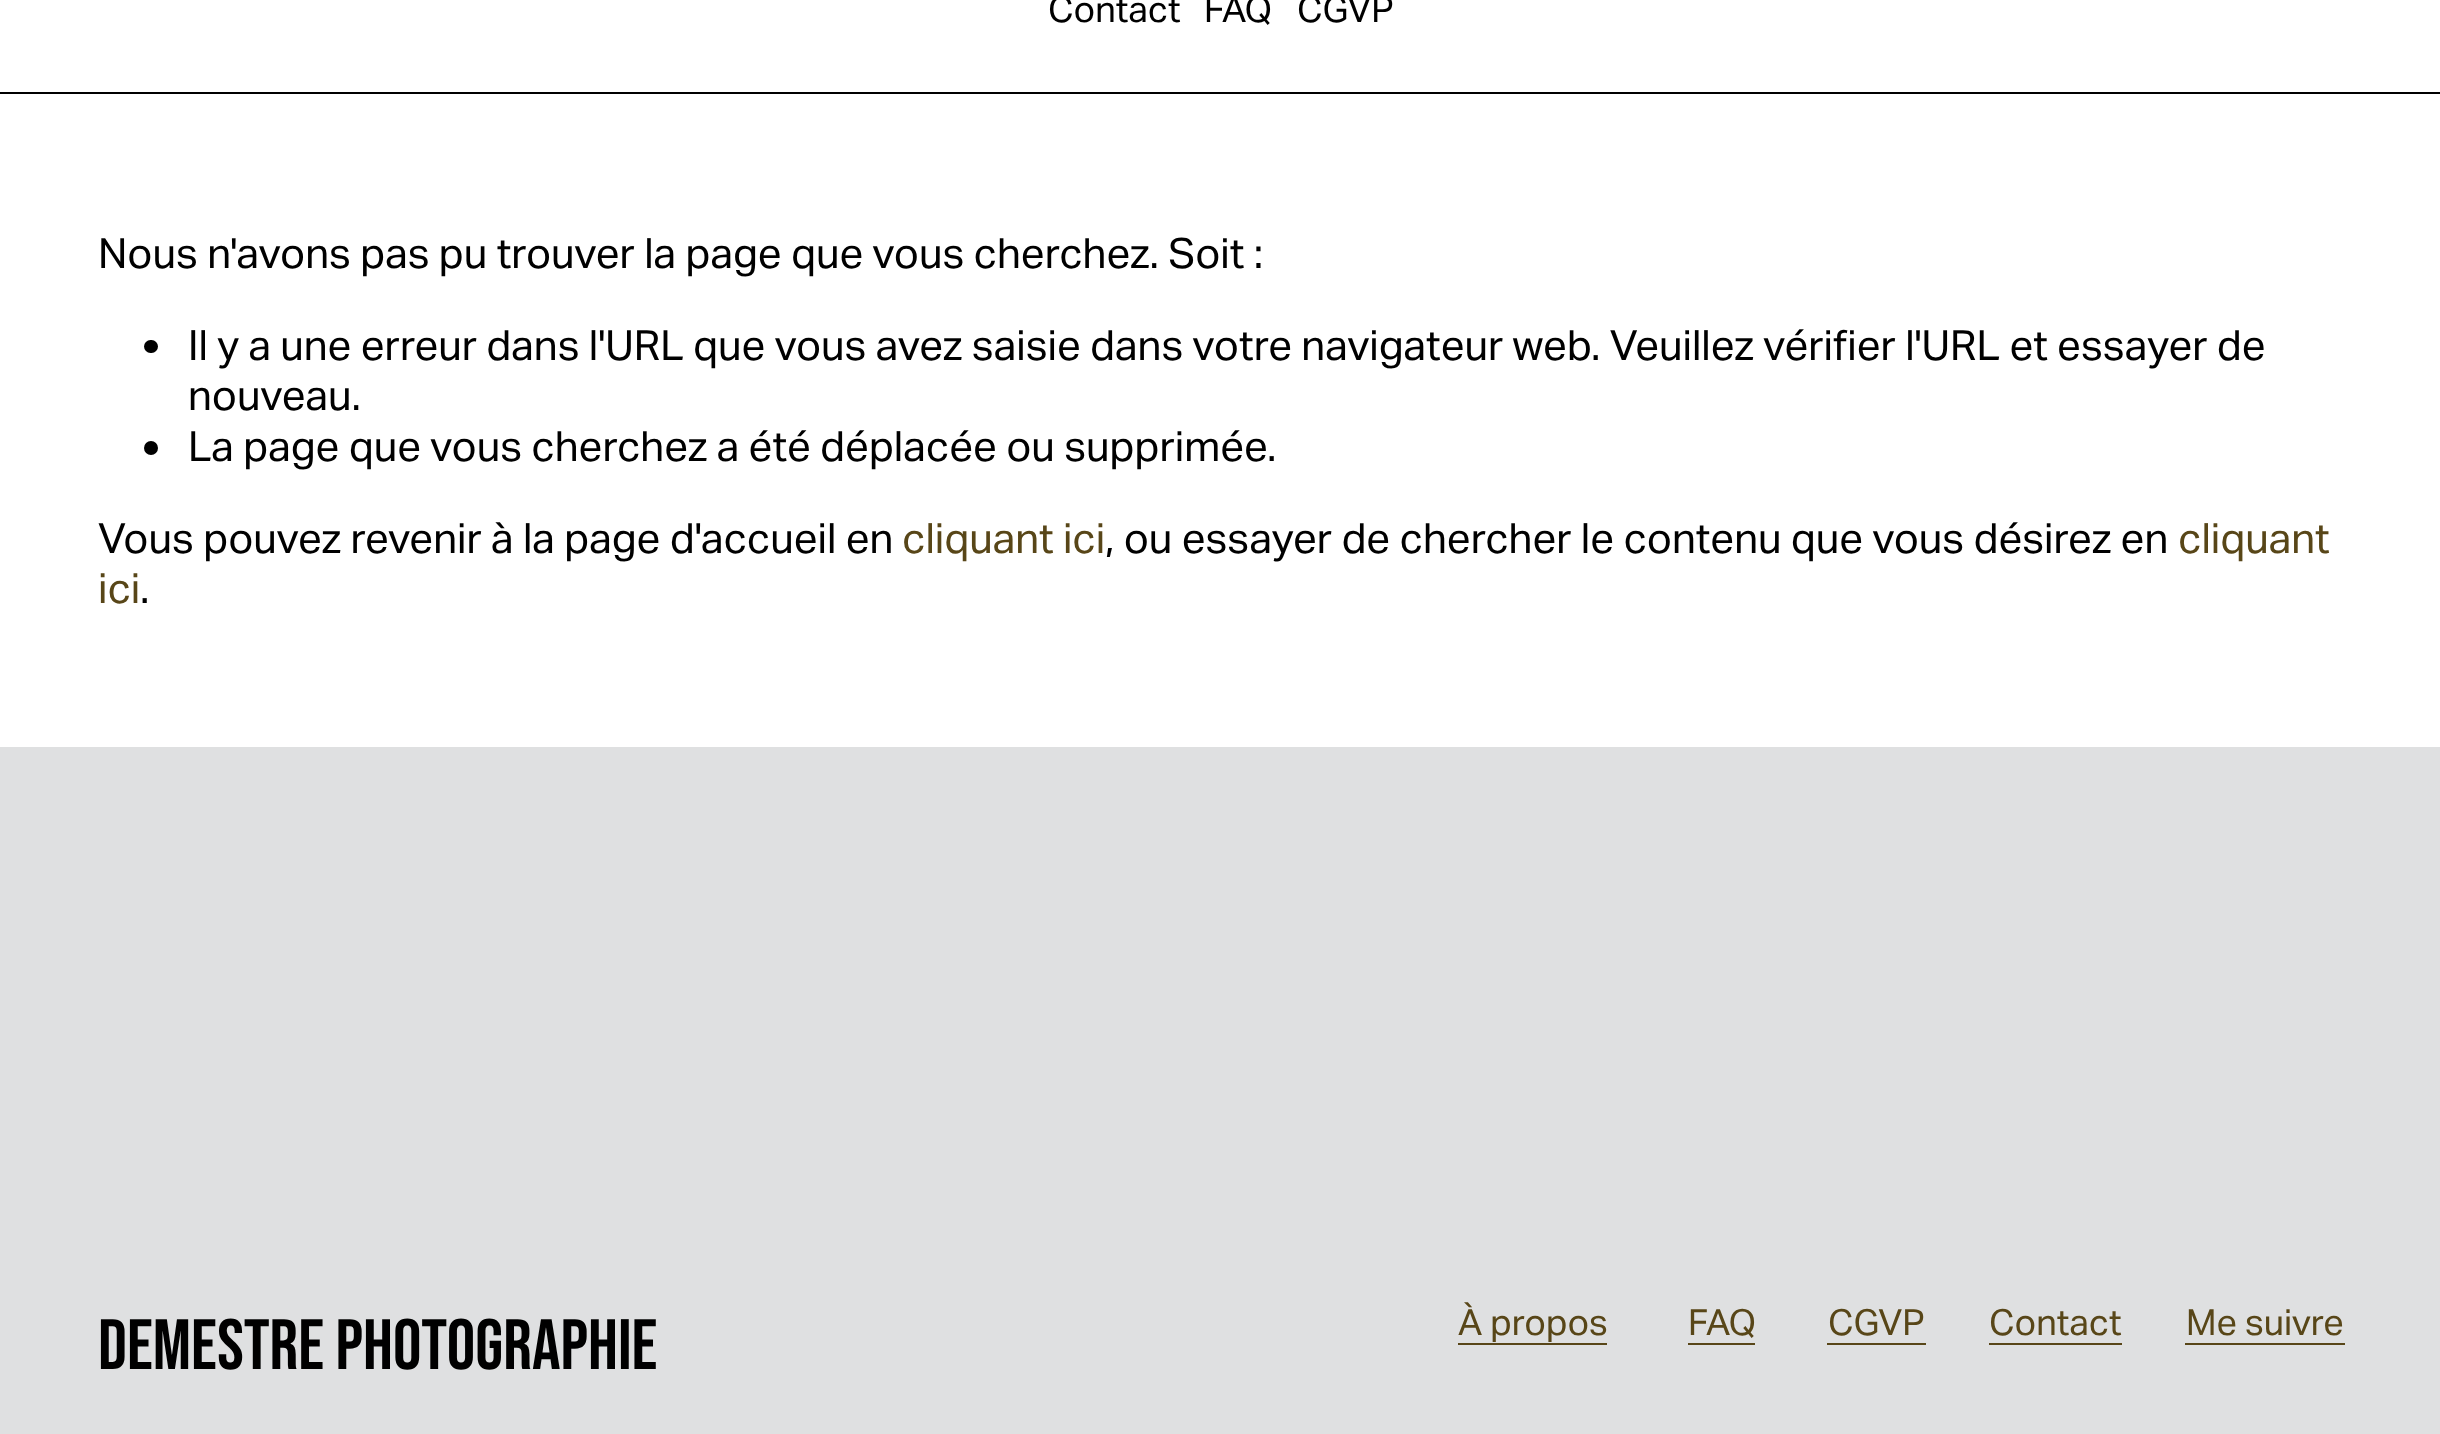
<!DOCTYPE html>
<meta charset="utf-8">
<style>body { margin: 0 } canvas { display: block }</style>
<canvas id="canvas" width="2440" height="1434"></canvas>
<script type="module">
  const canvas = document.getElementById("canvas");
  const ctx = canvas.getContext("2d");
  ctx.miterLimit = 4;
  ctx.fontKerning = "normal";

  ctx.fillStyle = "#ffffff";
  ctx.fillRect(0, 0, 2440, 1434);
  ctx.font = "36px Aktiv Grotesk";
  ctx.fillStyle = "#000000";
  ctx.fillText("Contact", 1048, 22);
  ctx.fillText("FAQ", 1204, 22);
  ctx.fillText("CGVP", 1297, 22);
  ctx.fillRect(0, 92, 2440, 2);
  ctx.font = "41.85px Aktiv Grotesk";
  ctx.fillText("Nous n'avons pas pu trouver la page que vous cherchez. Soit :", 98, 268);
  ctx.beginPath();
  ctx.roundRect(144, 340, 14, 13, 6.5);
  ctx.fill();
  ctx.fillText("Il y a une erreur dans l'URL que vous avez saisie dans votre navigateur web. Veuillez vérifier l'URL et essayer de", 188, 360);
  ctx.fillText("nouveau.", 188, 410);
  ctx.beginPath();
  ctx.arc(151, 448, 7, 0, Math.PI * 2);
  ctx.fill();
  ctx.fillText("La page que vous cherchez a été déplacée ou supprimée.", 188, 461);
  ctx.fillText("Vous pouvez revenir à la page d'accueil en", 98, 553);
  ctx.fillStyle = "#584618";
  ctx.fillText("cliquant ici", 902, 553);
  ctx.fillStyle = "#000000";
  ctx.fillText(", ou essayer de chercher le contenu que vous désirez en", 1105, 553);
  ctx.fillStyle = "#584618";
  ctx.fillText("cliquant", 2178, 553);
  ctx.fillText("ici", 98, 603);
  ctx.fillStyle = "#000000";
  ctx.fillText(".", 140, 603);
  ctx.fillStyle = "#dfe0e1";
  ctx.fillRect(0, 747, 2440, 687);
  ctx.font = "71.25px Bebas Neue";
  ctx.fillStyle = "#000000";
  ctx.fillText("DEMESTRE PHOTOGRAPHIE", 98, 1369);
  ctx.font = "36px Aktiv Grotesk";
  ctx.fillStyle = "#584618";
  ctx.fillText("À propos", 1458, 1335);
  ctx.fillRect(1458, 1343, 149, 2);
  ctx.fillText("FAQ", 1688, 1335);
  ctx.fillRect(1688, 1343, 67, 2);
  ctx.fillText("CGVP", 1828, 1335);
  ctx.fillRect(1827, 1343, 99, 2);
  ctx.fillText("Contact", 1989, 1335);
  ctx.fillRect(1989, 1343, 133, 2);
  ctx.fillText("Me suivre", 2186, 1335);
  ctx.fillRect(2185, 1343, 160, 2);
</script>
